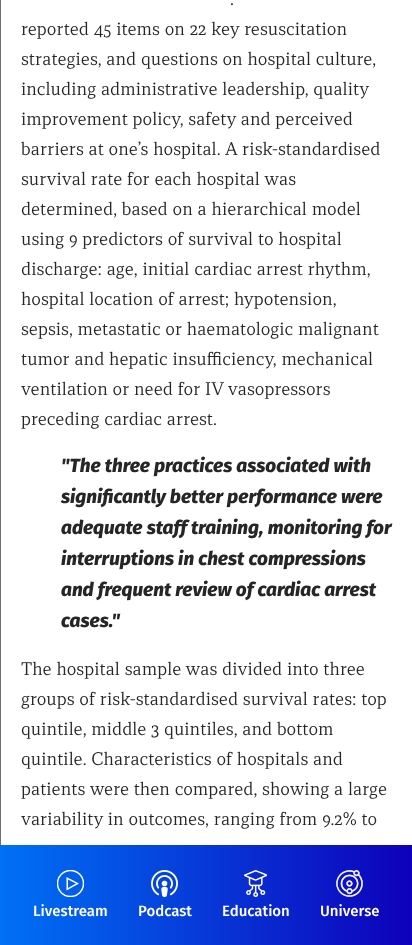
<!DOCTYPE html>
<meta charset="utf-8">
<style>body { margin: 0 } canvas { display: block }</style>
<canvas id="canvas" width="412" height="945"></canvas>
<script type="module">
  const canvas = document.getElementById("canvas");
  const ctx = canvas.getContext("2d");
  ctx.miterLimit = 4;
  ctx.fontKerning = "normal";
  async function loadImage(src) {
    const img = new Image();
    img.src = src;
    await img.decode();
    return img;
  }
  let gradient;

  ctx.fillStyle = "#ffffff";
  ctx.fillRect(0, 0, 412, 945);
  ctx.fillStyle = "#707070";
  ctx.fillRect(0, 0, 1, 845);
  ctx.font = "17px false";
  ctx.fillStyle = "#262626";
  ctx.fillText(".", 230, 5);
  ctx.fillText("reported 45 items on 22 key resuscitation", 21, 35);
  ctx.fillText("strategies, and questions on hospital culture,", 21, 65);
  ctx.fillText("including administrative leadership, quality", 21, 95);
  ctx.fillText("improvement policy, safety and perceived", 21, 125);
  ctx.fillText("barriers at one’s hospital. A risk-standardised", 21, 155);
  ctx.fillText("survival rate for each hospital was", 21, 185);
  ctx.fillText("determined, based on a hierarchical model", 21, 215);
  ctx.fillText("using 9 predictors of survival to hospital", 21, 245);
  ctx.fillText("discharge: age, initial cardiac arrest rhythm,", 21, 275);
  ctx.fillText("hospital location of arrest; hypotension,", 21, 305);
  ctx.fillText("sepsis, metastatic or haematologic malignant", 21, 335);
  ctx.fillText("tumor and hepatic insufficiency, mechanical", 21, 365);
  ctx.fillText("ventilation or need for IV vasopressors", 21, 395);
  ctx.fillText("preceding cardiac arrest.", 21, 425);
  ctx.font = "italic 800 19px Fira Sans";
  ctx.fillText("\"The three practices associated with", 61, 472);
  ctx.fillText("significantly better performance were", 61, 503);
  ctx.fillText("adequate staff training, monitoring for", 61, 534);
  ctx.fillText("interruptions in chest compressions", 61, 565);
  ctx.fillText("and frequent review of cardiac arrest", 61, 596);
  ctx.fillText("cases.\"", 61, 627);
  ctx.font = "17px false";
  ctx.fillText("The hospital sample was divided into three", 21, 675);
  ctx.fillText("groups of risk-standardised survival rates: top", 21, 705);
  ctx.fillText("quintile, middle 3 quintiles, and bottom", 21, 735);
  ctx.fillText("quintile. Characteristics of hospitals and", 21, 765);
  ctx.fillText("patients were then compared, showing a large", 21, 795);
  ctx.fillText("variability in outcomes, ranging from 9.2% to", 21, 825);
  gradient = ctx.createLinearGradient(0, 895, 412, 895);
  gradient.addColorStop(0, "#0071f5");
  gradient.addColorStop(1, "#0e00ba");
  ctx.fillStyle = gradient;
  ctx.fillRect(0, 845, 412, 100);
  ctx.save();
  ctx.beginPath();
  ctx.rect(57, 870, 27, 27);
  ctx.clip();
  ctx.beginPath();
  ctx.arc(70.5, 883.5, 13, 0, Math.PI * 2);
  ctx.strokeStyle = "#ffffff";
  ctx.lineWidth = 1.5;
  ctx.stroke();
  ctx.restore();
  ctx.fillStyle = "#ffffff";
  ctx.beginPath();
  ctx.moveTo(76, 883.5);
  ctx.lineTo(68, 879.5);
  ctx.lineTo(68, 888);
  ctx.lineTo(76, 883.5);
  ctx.moveTo(79, 883.5);
  ctx.lineTo(66.5, 890.5);
  ctx.lineTo(66.5, 877);
  ctx.closePath();
  ctx.fill();
  ctx.font = "500 15px Fira Sans";
  ctx.fillText("Livestream", 33, 916);
  ctx.drawImage(await loadImage("img1.png"), 151, 870, 27, 27);
  ctx.fillText("Podcast", 138, 916);
  ctx.drawImage(await loadImage("img2.png"), 244, 870, 23, 27);
  ctx.fillText("Education", 222, 916);
  ctx.drawImage(await loadImage("img3.png"), 336, 870, 27, 27);
  ctx.fillText("Universe", 320, 916);
</script>
